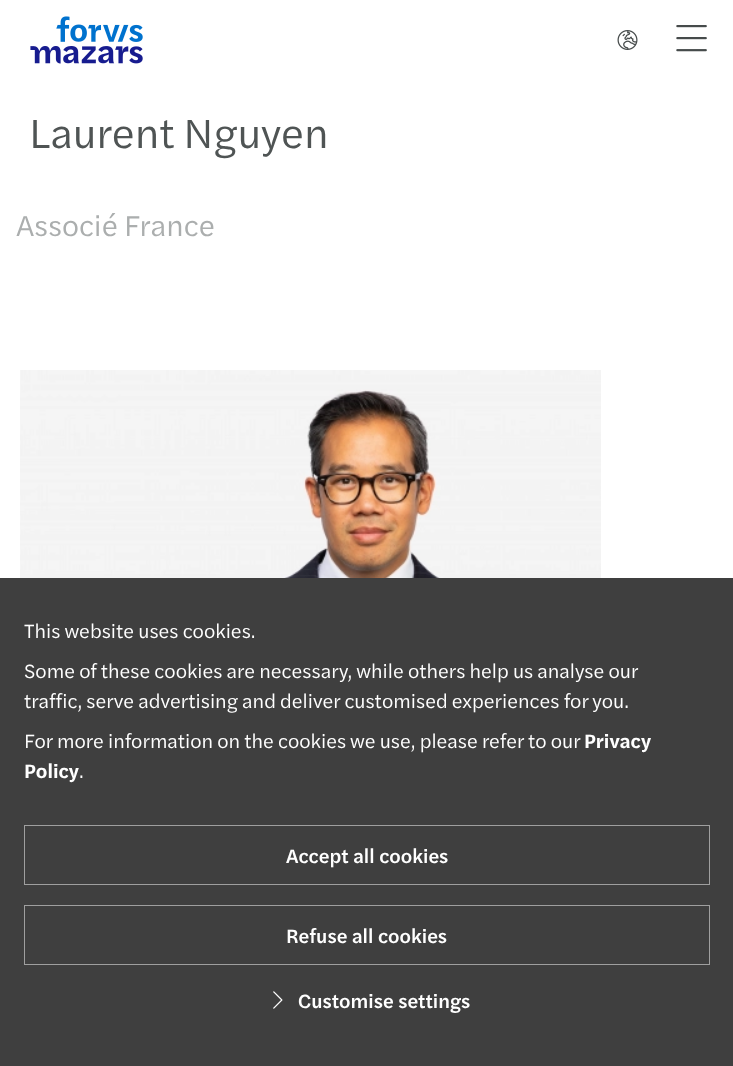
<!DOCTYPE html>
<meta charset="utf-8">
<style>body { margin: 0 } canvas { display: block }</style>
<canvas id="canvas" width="733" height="1066"></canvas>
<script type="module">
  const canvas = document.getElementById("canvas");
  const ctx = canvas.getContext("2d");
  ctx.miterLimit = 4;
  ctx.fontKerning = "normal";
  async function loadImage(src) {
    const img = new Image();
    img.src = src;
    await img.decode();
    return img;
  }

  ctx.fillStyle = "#ffffff";
  ctx.fillRect(0, 0, 733, 1066);
  ctx.drawImage(await loadImage("img1.png"), 30, 16, 113, 48);
  ctx.drawImage(await loadImage("img2.png"), 617, 30, 21, 20);
  ctx.drawImage(await loadImage("img3.png"), 676, 25, 31, 27);
  ctx.font = "42.5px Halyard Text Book";
  ctx.fillStyle = "#4f5454";
  ctx.fillText("Laurent Nguyen", 29, 148);
  ctx.font = "30px Halyard Text Book";
  ctx.fillStyle = "#abaeae";
  ctx.fillText("Associé France", 16, 236);
  ctx.drawImage(await loadImage("img4.png"), 20, 370, 581, 208);
  ctx.fillStyle = "#3f3f3f";
  ctx.fillRect(0, 578, 733, 488);
  ctx.font = "20px Halyard Text Book";
  ctx.fillStyle = "#ffffff";
  ctx.fillText("This website uses cookies.", 24, 638);
  ctx.fillText("Some of these cookies are necessary, while others help us analyse our", 24, 678);
  ctx.fillText("traffic, serve advertising and deliver customised experiences for you.", 24, 708);
  ctx.fillText("For more information on the cookies we use, please refer to our", 24, 748);
  ctx.font = "600 20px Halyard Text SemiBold";
  ctx.fillText("Privacy", 584, 748);
  ctx.fillText("Policy", 24, 778);
  ctx.font = "20px Halyard Text Book";
  ctx.fillText(".", 79, 778);
  ctx.strokeStyle = "#9f9f9f";
  ctx.strokeRect(24.5, 825.5, 685, 59);
  ctx.font = "500 20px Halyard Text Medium";
  ctx.fillText("Accept all cookies", 286, 863);
  ctx.strokeRect(24.5, 905.5, 685, 59);
  ctx.fillText("Refuse all cookies", 286, 943);
  ctx.drawImage(await loadImage("img5.png"), 273, 991, 10, 18);
  ctx.fillText("Customise settings", 298, 1008);
</script>
